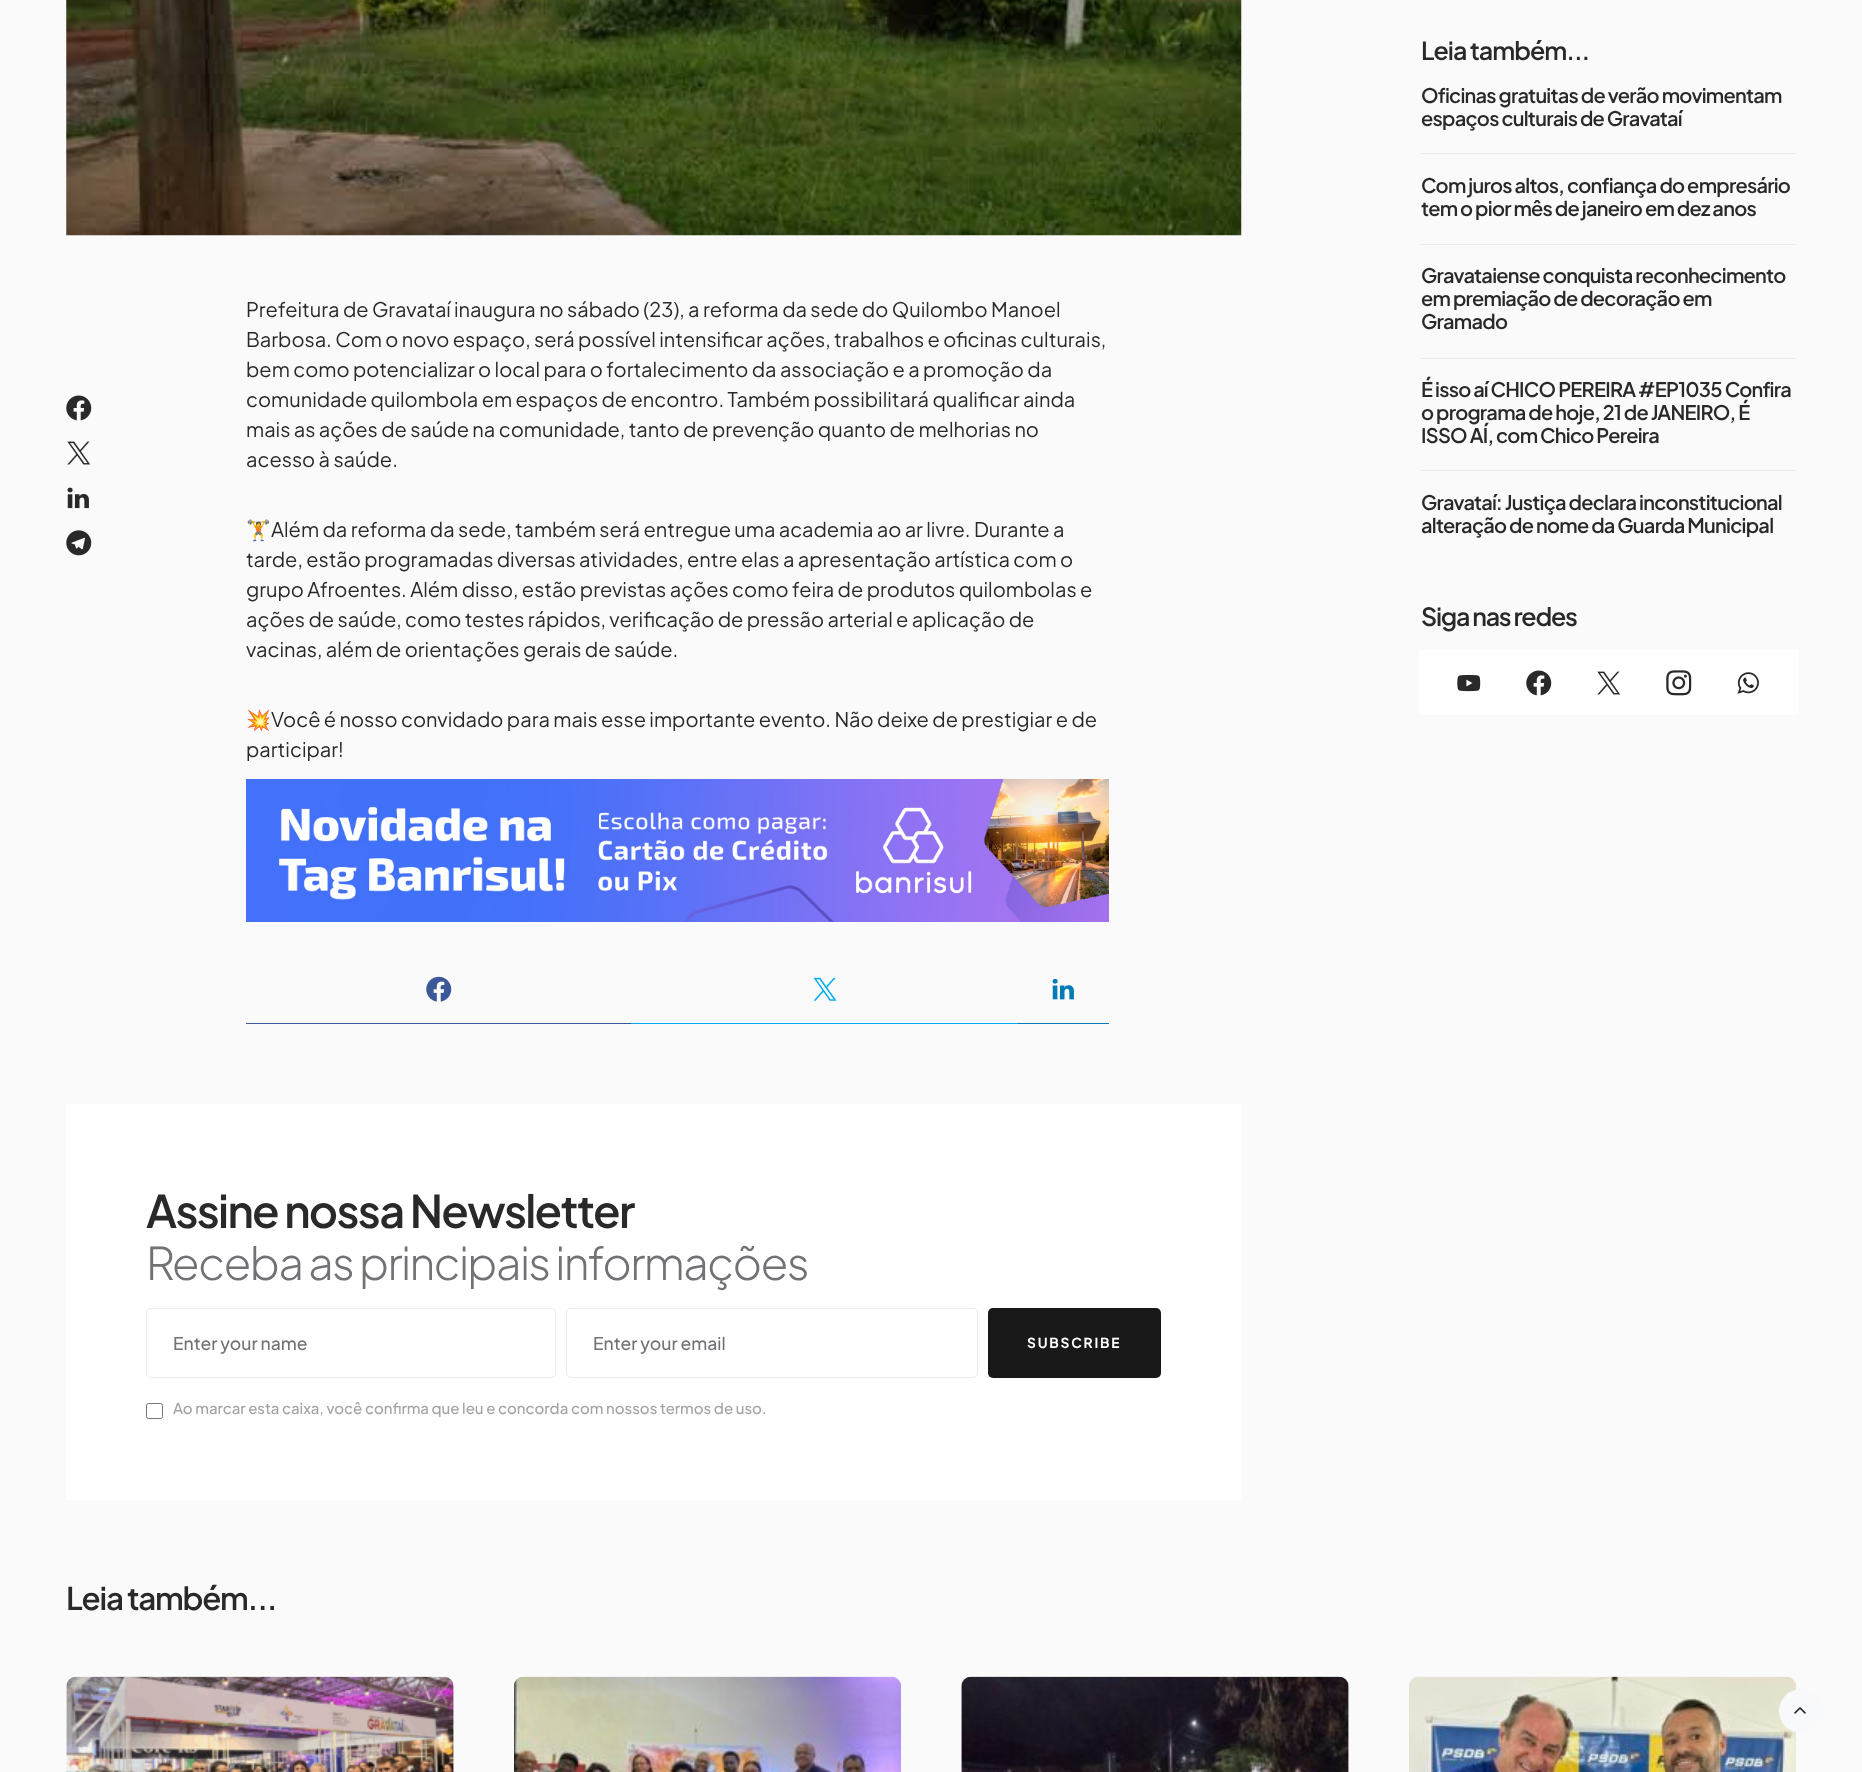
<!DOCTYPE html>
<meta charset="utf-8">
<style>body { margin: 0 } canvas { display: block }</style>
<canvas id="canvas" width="1862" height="1772"></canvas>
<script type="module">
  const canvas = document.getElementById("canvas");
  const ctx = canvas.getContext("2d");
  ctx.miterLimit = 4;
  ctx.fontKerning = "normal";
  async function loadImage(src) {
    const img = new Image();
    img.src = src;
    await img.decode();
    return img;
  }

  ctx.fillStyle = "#fafafa";
  ctx.fillRect(0, 0, 1862, 1772);
  ctx.drawImage(await loadImage("img1.png"), 66, 0, 1176, 236);
  ctx.drawImage(await loadImage("img2.png"), 66, 395, 26, 26);
  ctx.drawImage(await loadImage("img3.png"), 67, 441, 24, 24);
  ctx.drawImage(await loadImage("img4.png"), 67, 487, 22, 22);
  ctx.drawImage(await loadImage("img5.png"), 66, 530, 26, 26);
  ctx.font = "20px Plus Jakarta Sans";
  ctx.fillStyle = "#292929";
  ctx.fillText("Prefeitura de Gravataí inaugura no sábado (23), a reforma da sede do Quilombo Manoel", 246, 317);
  ctx.fillText("Barbosa. Com o novo espaço, será possível intensificar ações, trabalhos e oficinas culturais,", 246, 347);
  ctx.fillText("bem como potencializar o local para o fortalecimento da associação e a promoção da", 246, 377);
  ctx.fillText("comunidade quilombola em espaços de encontro. Também possibilitará qualificar ainda", 246, 407);
  ctx.fillText("mais as ações de saúde na comunidade, tanto de prevenção quanto de melhorias no", 246, 437);
  ctx.fillText("acesso à saúde.", 246, 467);
  ctx.font = "20px Noto Color Emoji";
  ctx.fillText("🏋️", 246, 537);
  ctx.font = "20px Plus Jakarta Sans";
  ctx.fillText("Além da reforma da sede, também será entregue uma academia ao ar livre. Durante a", 271, 537);
  ctx.fillText("tarde, estão programadas diversas atividades, entre elas a apresentação artística com o", 246, 567);
  ctx.fillText("grupo Afroentes. Além disso, estão previstas ações como feira de produtos quilombolas e", 246, 597);
  ctx.fillText("ações de saúde, como testes rápidos, verificação de pressão arterial e aplicação de", 246, 627);
  ctx.fillText("vacinas, além de orientações gerais de saúde.", 246, 657);
  ctx.font = "20px Noto Color Emoji";
  ctx.fillText("💥", 246, 727);
  ctx.font = "20px Plus Jakarta Sans";
  ctx.fillText("Você é nosso convidado para mais esse importante evento. Não deixe de prestigiar e de", 271, 727);
  ctx.fillText("participar!", 246, 757);
  ctx.drawImage(await loadImage("img6.png"), 246, 779, 863, 143);
  ctx.drawImage(await loadImage("img7.png"), 426, 976, 26, 26);
  ctx.fillStyle = "#3b5998";
  ctx.fillRect(246, 1023, 385, 1);
  ctx.drawImage(await loadImage("img8.png"), 813, 977, 24, 24);
  ctx.fillStyle = "#00aced";
  ctx.fillRect(631, 1023, 387, 1);
  ctx.drawImage(await loadImage("img9.png"), 1052, 978, 22, 22);
  ctx.fillStyle = "#007bb6";
  ctx.fillRect(1018, 1023, 91, 1);
  ctx.fillStyle = "#ffffff";
  ctx.fillRect(66, 1104, 1175, 396);
  ctx.letterSpacing = "-1.7px";
  ctx.font = "600 45px Plus Jakarta Sans";
  ctx.fillStyle = "#292929";
  ctx.fillText("Assine nossa Newsletter", 146, 1228);
  ctx.font = "300 45px Plus Jakarta Sans";
  ctx.fillStyle = "#717275";
  ctx.fillText("Receba as principais informações", 146, 1280);
  ctx.beginPath();
  ctx.roundRect(146.5, 1308.5, 409, 69, 4.5);
  ctx.strokeStyle = "#e9ecef";
  ctx.stroke();
  ctx.letterSpacing = "0px";
  ctx.font = "500 17.5px Plus Jakarta Sans";
  ctx.fillText("Enter your name", 173, 1350);
  ctx.beginPath();
  ctx.roundRect(566.5, 1308.5, 411, 69, 4.5);
  ctx.stroke();
  ctx.fillText("Enter your email", 593, 1350);
  ctx.fillStyle = "#191919";
  ctx.beginPath();
  ctx.roundRect(988, 1308, 173, 70, 5);
  ctx.fill();
  ctx.letterSpacing = "1.75px";
  ctx.font = "bold 13.75px Plus Jakarta Sans";
  ctx.fillStyle = "#ffffff";
  ctx.fillText("SUBSCRIBE", 1027, 1348);
  ctx.beginPath();
  ctx.roundRect(146.5, 1403.5, 16, 15, 2);
  ctx.strokeStyle = "#767676";
  ctx.stroke();
  ctx.letterSpacing = "0px";
  ctx.font = "500 15px Plus Jakarta Sans";
  ctx.fillStyle = "#a3a3a3";
  ctx.fillText("Ao marcar esta caixa, você confirma que leu e concorda com nossos termos de uso.", 173, 1414);
  ctx.letterSpacing = "-1px";
  ctx.font = "600 25px Plus Jakarta Sans";
  ctx.fillStyle = "#292929";
  ctx.fillText("Leia também...", 1421, 60);
  ctx.fillStyle = "#e9ecef";
  ctx.fillRect(1421, 153, 375, 1);
  ctx.letterSpacing = "-0.75px";
  ctx.font = "600 20px Plus Jakarta Sans";
  ctx.fillStyle = "#292929";
  ctx.fillText("Oficinas gratuitas de verão movimentam", 1421, 103);
  ctx.fillText("espaços culturais de Gravataí", 1421, 126);
  ctx.fillStyle = "#e9ecef";
  ctx.fillRect(1421, 244, 375, 1);
  ctx.fillStyle = "#292929";
  ctx.fillText("Com juros altos, confiança do empresário", 1421, 193);
  ctx.fillText("tem o pior mês de janeiro em dez anos", 1421, 216);
  ctx.fillStyle = "#e9ecef";
  ctx.fillRect(1421, 358, 375, 1);
  ctx.fillStyle = "#292929";
  ctx.fillText("Gravataiense conquista reconhecimento", 1421, 283);
  ctx.fillText("em premiação de decoração em", 1421, 306);
  ctx.fillText("Gramado", 1421, 329);
  ctx.fillStyle = "#e9ecef";
  ctx.fillRect(1421, 470, 375, 1);
  ctx.fillStyle = "#292929";
  ctx.fillText("É isso aí CHICO PEREIRA #EP1035 Confira", 1421, 397);
  ctx.fillText("o programa de hoje, 21 de JANEIRO, É", 1421, 420);
  ctx.fillText("ISSO AÍ, com Chico Pereira", 1421, 443);
  ctx.fillText("Gravataí: Justiça declara inconstitucional", 1421, 510);
  ctx.fillText("alteração de nome da Guarda Municipal", 1421, 533);
  ctx.letterSpacing = "-1.25px";
  ctx.font = "600 25px Plus Jakarta Sans";
  ctx.fillText("Siga nas redes", 1421, 626);
  ctx.fillStyle = "#ffffff";
  ctx.fillRect(1419, 650, 380, 65);
  ctx.drawImage(await loadImage("img10.png"), 1457, 674, 24, 18);
  ctx.drawImage(await loadImage("img11.png"), 1526, 670, 26, 26);
  ctx.drawImage(await loadImage("img12.png"), 1597, 671, 24, 24);
  ctx.drawImage(await loadImage("img13.png"), 1666, 670, 26, 26);
  ctx.drawImage(await loadImage("img14.png"), 1737, 672, 22, 22);
  ctx.font = "600 31.25px Plus Jakarta Sans";
  ctx.fillStyle = "#292929";
  ctx.fillText("Leia também...", 66, 1610);
  ctx.drawImage(await loadImage("img15.png"), 66, 1676, 388, 96);
  ctx.drawImage(await loadImage("img16.png"), 514, 1676, 387, 96);
  ctx.drawImage(await loadImage("img17.png"), 961, 1676, 388, 96);
  ctx.drawImage(await loadImage("img18.png"), 1409, 1676, 387, 96);
  ctx.fillStyle = "#f8f9fa";
  ctx.beginPath();
  ctx.arc(1801, 1711, 22, 0, Math.PI * 2);
  ctx.fill();
  ctx.drawImage(await loadImage("img19.png"), 1794, 1707, 12, 7);
</script>
